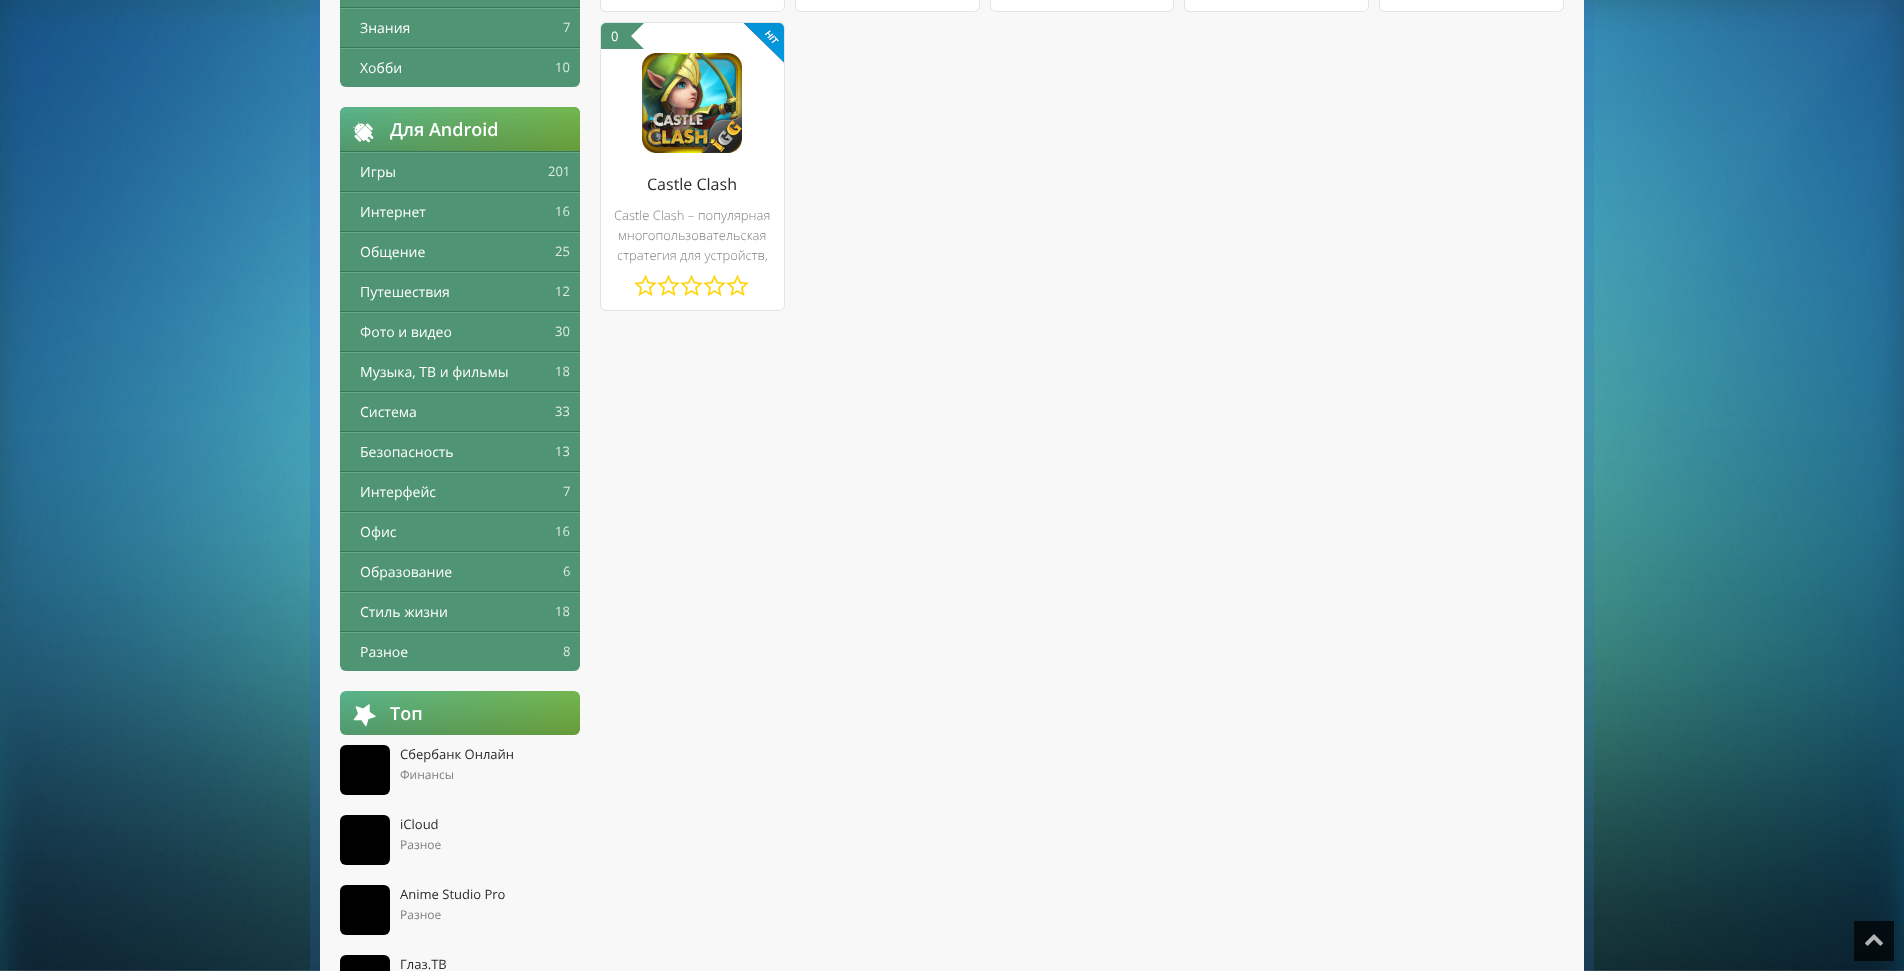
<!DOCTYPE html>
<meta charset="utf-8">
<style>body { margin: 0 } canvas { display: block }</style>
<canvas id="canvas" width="1904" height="971"></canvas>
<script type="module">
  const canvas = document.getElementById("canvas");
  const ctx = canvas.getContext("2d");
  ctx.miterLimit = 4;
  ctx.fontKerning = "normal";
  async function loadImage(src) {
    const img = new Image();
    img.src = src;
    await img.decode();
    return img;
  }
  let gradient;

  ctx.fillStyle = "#ffffff";
  ctx.fillRect(0, 0, 1904, 971);
  ctx.drawImage(await loadImage("img1.png"), 0, 0, 1904, 971);
  ctx.strokeStyle = "rgba(49, 106, 201, 0.2)";
  ctx.lineWidth = 10;
  ctx.strokeRect(315, -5, 1274, 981);
  ctx.fillStyle = "#f8f8f8";
  ctx.fillRect(320, 0, 1264, 971);
  ctx.fillStyle = "#4f9573";
  ctx.beginPath();
  ctx.roundRect(340, -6, 240, 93, 6);
  ctx.fill();
  ctx.fillStyle = "#66ab89";
  ctx.fillRect(340, 8, 240, 1);
  ctx.fillStyle = "#347656";
  ctx.fillRect(340, 7, 240, 1);
  ctx.fillStyle = "#66ab89";
  ctx.fillRect(340, 48, 240, 1);
  ctx.fillStyle = "#347656";
  ctx.fillRect(340, 47, 240, 1);
  ctx.font = "14px Open Sans";
  ctx.fillStyle = "#ffffff";
  ctx.fillText("Знания", 360, 33);
  ctx.font = "13px Open Sans";
  ctx.fillStyle = "#dceae3";
  ctx.fillText("7", 563, 32);
  ctx.font = "14px Open Sans";
  ctx.fillStyle = "#ffffff";
  ctx.fillText("Хобби", 360, 73);
  ctx.font = "13px Open Sans";
  ctx.fillStyle = "#dceae3";
  ctx.fillText("10", 555, 72);
  ctx.fillStyle = "#4f9573";
  ctx.beginPath();
  ctx.roundRect(340, 107, 240, 564, 6);
  ctx.fill();
  ctx.fillStyle = "#66ab89";
  ctx.fillRect(340, 152, 240, 1);
  gradient = ctx.createLinearGradient(389, 58, 531, 200);
  gradient.addColorStop(0, "#58b28d");
  gradient.addColorStop(1, "#79b743");
  ctx.fillStyle = gradient;
  ctx.beginPath();
  ctx.roundRect(340, 107, 240, 44, [6, 6, 0, 0]);
  ctx.fill();
  gradient = ctx.createLinearGradient(460, 107, 460, 151);
  gradient.addColorStop(0, "rgba(0, 0, 0, 0)");
  gradient.addColorStop(1, "rgba(0, 0, 0, 0.15)");
  ctx.fillStyle = gradient;
  ctx.fillRect(340, 113, 240, 38);
  ctx.fillStyle = "#347656";
  ctx.fillRect(340, 151, 240, 1);
  ctx.drawImage(await loadImage("img2.png"), 352, 121, 22, 22);
  ctx.font = "600 18px Open Sans";
  ctx.fillStyle = "#ffffff";
  ctx.fillText("Для Android", 390, 136);
  ctx.fillStyle = "#66ab89";
  ctx.fillRect(340, 192, 240, 1);
  ctx.fillStyle = "#347656";
  ctx.fillRect(340, 191, 240, 1);
  ctx.font = "14px Open Sans";
  ctx.fillStyle = "#ffffff";
  ctx.fillText("Игры", 360, 177);
  ctx.font = "13px Open Sans";
  ctx.fillStyle = "#dceae3";
  ctx.fillText("201", 548, 176);
  ctx.fillStyle = "#66ab89";
  ctx.fillRect(340, 232, 240, 1);
  ctx.fillStyle = "#347656";
  ctx.fillRect(340, 231, 240, 1);
  ctx.font = "14px Open Sans";
  ctx.fillStyle = "#ffffff";
  ctx.fillText("Интернет", 360, 217);
  ctx.font = "13px Open Sans";
  ctx.fillStyle = "#dceae3";
  ctx.fillText("16", 555, 216);
  ctx.fillStyle = "#66ab89";
  ctx.fillRect(340, 272, 240, 1);
  ctx.fillStyle = "#347656";
  ctx.fillRect(340, 271, 240, 1);
  ctx.font = "14px Open Sans";
  ctx.fillStyle = "#ffffff";
  ctx.fillText("Общение", 360, 257);
  ctx.font = "13px Open Sans";
  ctx.fillStyle = "#dceae3";
  ctx.fillText("25", 555, 256);
  ctx.fillStyle = "#66ab89";
  ctx.fillRect(340, 312, 240, 1);
  ctx.fillStyle = "#347656";
  ctx.fillRect(340, 311, 240, 1);
  ctx.font = "14px Open Sans";
  ctx.fillStyle = "#ffffff";
  ctx.fillText("Путешествия", 360, 297);
  ctx.font = "13px Open Sans";
  ctx.fillStyle = "#dceae3";
  ctx.fillText("12", 555, 296);
  ctx.fillStyle = "#66ab89";
  ctx.fillRect(340, 352, 240, 1);
  ctx.fillStyle = "#347656";
  ctx.fillRect(340, 351, 240, 1);
  ctx.font = "14px Open Sans";
  ctx.fillStyle = "#ffffff";
  ctx.fillText("Фото и видео", 360, 337);
  ctx.font = "13px Open Sans";
  ctx.fillStyle = "#dceae3";
  ctx.fillText("30", 555, 336);
  ctx.fillStyle = "#66ab89";
  ctx.fillRect(340, 392, 240, 1);
  ctx.fillStyle = "#347656";
  ctx.fillRect(340, 391, 240, 1);
  ctx.font = "14px Open Sans";
  ctx.fillStyle = "#ffffff";
  ctx.fillText("Музыка, ТВ и фильмы", 360, 377);
  ctx.font = "13px Open Sans";
  ctx.fillStyle = "#dceae3";
  ctx.fillText("18", 555, 376);
  ctx.fillStyle = "#66ab89";
  ctx.fillRect(340, 432, 240, 1);
  ctx.fillStyle = "#347656";
  ctx.fillRect(340, 431, 240, 1);
  ctx.font = "14px Open Sans";
  ctx.fillStyle = "#ffffff";
  ctx.fillText("Система", 360, 417);
  ctx.font = "13px Open Sans";
  ctx.fillStyle = "#dceae3";
  ctx.fillText("33", 555, 416);
  ctx.fillStyle = "#66ab89";
  ctx.fillRect(340, 472, 240, 1);
  ctx.fillStyle = "#347656";
  ctx.fillRect(340, 471, 240, 1);
  ctx.font = "14px Open Sans";
  ctx.fillStyle = "#ffffff";
  ctx.fillText("Безопасность", 360, 457);
  ctx.font = "13px Open Sans";
  ctx.fillStyle = "#dceae3";
  ctx.fillText("13", 555, 456);
  ctx.fillStyle = "#66ab89";
  ctx.fillRect(340, 512, 240, 1);
  ctx.fillStyle = "#347656";
  ctx.fillRect(340, 511, 240, 1);
  ctx.font = "14px Open Sans";
  ctx.fillStyle = "#ffffff";
  ctx.fillText("Интерфейс", 360, 497);
  ctx.font = "13px Open Sans";
  ctx.fillStyle = "#dceae3";
  ctx.fillText("7", 563, 496);
  ctx.fillStyle = "#66ab89";
  ctx.fillRect(340, 552, 240, 1);
  ctx.fillStyle = "#347656";
  ctx.fillRect(340, 551, 240, 1);
  ctx.font = "14px Open Sans";
  ctx.fillStyle = "#ffffff";
  ctx.fillText("Офис", 360, 537);
  ctx.font = "13px Open Sans";
  ctx.fillStyle = "#dceae3";
  ctx.fillText("16", 555, 536);
  ctx.fillStyle = "#66ab89";
  ctx.fillRect(340, 592, 240, 1);
  ctx.fillStyle = "#347656";
  ctx.fillRect(340, 591, 240, 1);
  ctx.font = "14px Open Sans";
  ctx.fillStyle = "#ffffff";
  ctx.fillText("Образование", 360, 577);
  ctx.font = "13px Open Sans";
  ctx.fillStyle = "#dceae3";
  ctx.fillText("6", 563, 576);
  ctx.fillStyle = "#66ab89";
  ctx.fillRect(340, 632, 240, 1);
  ctx.fillStyle = "#347656";
  ctx.fillRect(340, 631, 240, 1);
  ctx.font = "14px Open Sans";
  ctx.fillStyle = "#ffffff";
  ctx.fillText("Стиль жизни", 360, 617);
  ctx.font = "13px Open Sans";
  ctx.fillStyle = "#dceae3";
  ctx.fillText("18", 555, 616);
  ctx.font = "14px Open Sans";
  ctx.fillStyle = "#ffffff";
  ctx.fillText("Разное", 360, 657);
  ctx.font = "13px Open Sans";
  ctx.fillStyle = "#dceae3";
  ctx.fillText("8", 563, 656);
  gradient = ctx.createLinearGradient(389, 642, 531, 784);
  gradient.addColorStop(0, "#58b28d");
  gradient.addColorStop(1, "#79b743");
  ctx.fillStyle = gradient;
  ctx.beginPath();
  ctx.roundRect(340, 691, 240, 44, 6);
  ctx.fill();
  gradient = ctx.createLinearGradient(460, 691, 460, 735);
  gradient.addColorStop(0, "rgba(0, 0, 0, 0)");
  gradient.addColorStop(1, "rgba(0, 0, 0, 0.15)");
  ctx.fillStyle = gradient;
  ctx.beginPath();
  ctx.roundRect(340, 691, 240, 44, 6);
  ctx.fill();
  ctx.drawImage(await loadImage("img3.png"), 353, 704, 23, 23);
  ctx.font = "600 18px Open Sans";
  ctx.fillStyle = "#ffffff";
  ctx.fillText("Топ", 390, 720);
  ctx.fillStyle = "#000000";
  ctx.beginPath();
  ctx.roundRect(340, 745, 50, 50, 6);
  ctx.fill();
  ctx.font = "13px Open Sans";
  ctx.fillStyle = "#2a2a2a";
  ctx.fillText("Сбербанк Онлайн", 400, 759);
  ctx.font = "12px Open Sans";
  ctx.fillStyle = "#7f7f7f";
  ctx.fillText("Финансы", 400, 779);
  ctx.fillStyle = "#000000";
  ctx.beginPath();
  ctx.roundRect(340, 815, 50, 50, 6);
  ctx.fill();
  ctx.font = "13px Open Sans";
  ctx.fillStyle = "#2a2a2a";
  ctx.fillText("iCloud", 400, 829);
  ctx.font = "12px Open Sans";
  ctx.fillStyle = "#7f7f7f";
  ctx.fillText("Разное", 400, 849);
  ctx.fillStyle = "#000000";
  ctx.beginPath();
  ctx.roundRect(340, 885, 50, 50, 6);
  ctx.fill();
  ctx.font = "13px Open Sans";
  ctx.fillStyle = "#2a2a2a";
  ctx.fillText("Anime Studio Pro", 400, 899);
  ctx.font = "12px Open Sans";
  ctx.fillStyle = "#7f7f7f";
  ctx.fillText("Разное", 400, 919);
  ctx.fillStyle = "#000000";
  ctx.beginPath();
  ctx.roundRect(340, 955, 50, 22, 6);
  ctx.fill();
  ctx.font = "13px Open Sans";
  ctx.fillStyle = "#2a2a2a";
  ctx.fillText("Глаз.ТВ", 400, 969);
  ctx.fillStyle = "#ffffff";
  ctx.beginPath();
  ctx.roundRect(600.5, -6.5, 184, 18, 5.5);
  ctx.fill();
  ctx.strokeStyle = "#e1e5e6";
  ctx.lineWidth = 1;
  ctx.stroke();
  ctx.beginPath();
  ctx.roundRect(795.5, -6.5, 184, 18, 5.5);
  ctx.fill();
  ctx.stroke();
  ctx.beginPath();
  ctx.roundRect(990.5, -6.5, 183, 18, 5.5);
  ctx.fill();
  ctx.stroke();
  ctx.beginPath();
  ctx.roundRect(1184.5, -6.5, 184, 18, 5.5);
  ctx.fill();
  ctx.stroke();
  ctx.beginPath();
  ctx.roundRect(1379.5, -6.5, 184, 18, 5.5);
  ctx.fill();
  ctx.stroke();
  ctx.beginPath();
  ctx.roundRect(600.5, 22.5, 184, 288, 5.5);
  ctx.fill();
  ctx.stroke();
  ctx.fillStyle = "#4f9573";
  ctx.beginPath();
  ctx.roundRect(601, 23, 17, 26, [5, 0, 0, 0]);
  ctx.fill();
  ctx.fillStyle = "#ffffff";
  ctx.fillText("0", 611, 41);
  ctx.fillStyle = "#4f9573";
  ctx.beginPath();
  ctx.moveTo(618, 23);
  ctx.lineTo(644, 23);
  ctx.lineTo(631, 36);
  ctx.closePath();
  ctx.moveTo(644, 49);
  ctx.lineTo(618, 49);
  ctx.lineTo(631, 36);
  ctx.closePath();
  ctx.fill();
  ctx.fillRect(618, 23, 13, 26);
  ctx.drawImage(await loadImage("img4.png"), 744, 23, 40, 40);
  ctx.drawImage(await loadImage("img5.png"), 642, 53, 100, 100);
  ctx.font = "16px Open Sans";
  ctx.fillStyle = "#2a2a2a";
  ctx.fillText("Castle Clash", 647, 190);
  ctx.font = "300 13px Open Sans";
  ctx.fillStyle = "#7f7f7f";
  ctx.fillText("Castle Clash – популярная", 614, 220);
  ctx.fillText("многопользовательская", 618, 240);
  ctx.fillText("стратегия для устройств,", 617, 260);
  ctx.drawImage(await loadImage("img6.png"), 634, 275, 115, 21);
  ctx.fillStyle = "rgba(0, 0, 0, 0.7)";
  ctx.fillRect(1854, 921, 40, 40);
  ctx.drawImage(await loadImage("img7.png"), 1865, 934, 18, 12);
</script>
